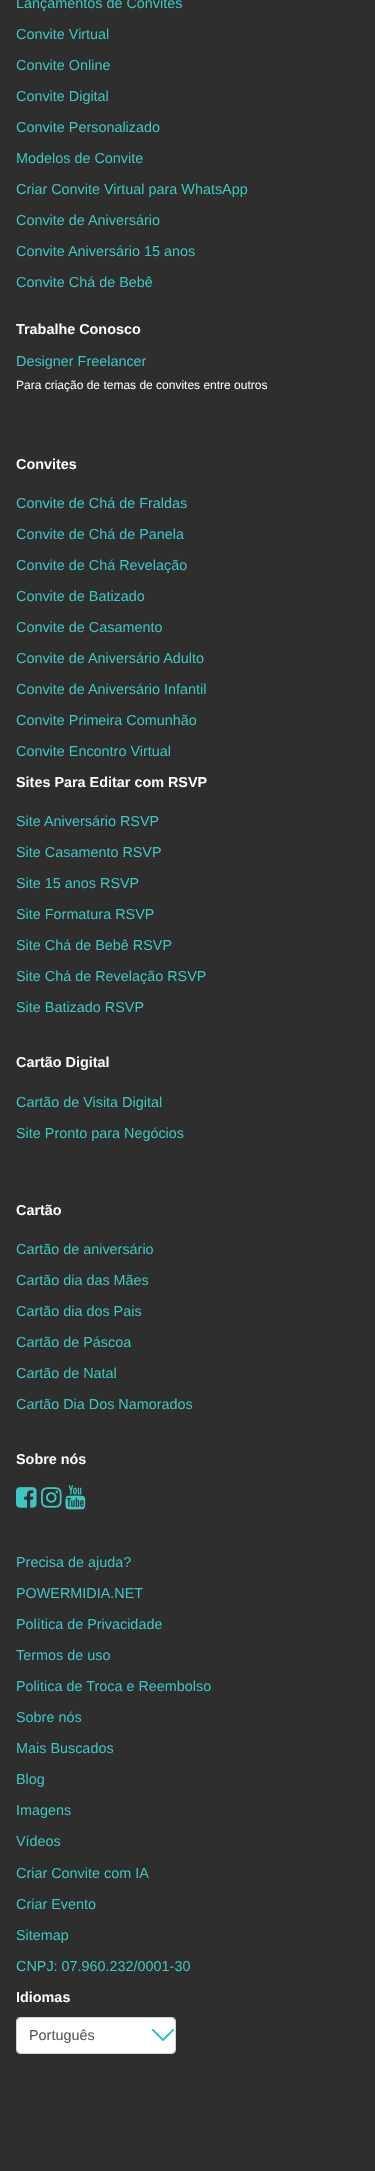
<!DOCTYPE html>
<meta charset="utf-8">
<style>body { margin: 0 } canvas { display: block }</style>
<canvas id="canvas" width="375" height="2171"></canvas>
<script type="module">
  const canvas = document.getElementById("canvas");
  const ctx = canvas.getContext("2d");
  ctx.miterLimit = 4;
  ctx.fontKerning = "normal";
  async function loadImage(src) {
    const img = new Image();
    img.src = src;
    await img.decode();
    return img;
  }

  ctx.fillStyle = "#2e2e2e";
  ctx.fillRect(0, 0, 375, 2171);
  ctx.font = "14.4px Liberation Sans";
  ctx.fillStyle = "#3ec7c2";
  ctx.fillText("Lançamentos de Convites", 16, 8);
  ctx.fillText("Convite Virtual", 16, 39);
  ctx.fillText("Convite Online", 16, 70);
  ctx.fillText("Convite Digital", 16, 101);
  ctx.fillText("Convite Personalizado", 16, 132);
  ctx.fillText("Modelos de Convite", 16, 163);
  ctx.fillText("Criar Convite Virtual para WhatsApp", 16, 194);
  ctx.fillText("Convite de Aniversário", 16, 225);
  ctx.fillText("Convite Aniversário 15 anos", 16, 256);
  ctx.fillText("Convite Chá de Bebê", 16, 287);
  ctx.font = "bold 14.4px Liberation Sans";
  ctx.fillStyle = "#ffffff";
  ctx.fillText("Trabalhe Conosco", 16, 334);
  ctx.font = "14.4px Liberation Sans";
  ctx.fillStyle = "#3ec7c2";
  ctx.fillText("Designer Freelancer", 16, 366);
  ctx.font = "12px Liberation Sans";
  ctx.fillStyle = "#ffffff";
  ctx.fillText("Para criação de temas de convites entre outros", 16, 389);
  ctx.fillStyle = "#292929";
  ctx.fillRect(16, 412, 343, 1);
  ctx.font = "bold 14.4px Liberation Sans";
  ctx.fillStyle = "#ffffff";
  ctx.fillText("Convites", 16, 469);
  ctx.font = "14.4px Liberation Sans";
  ctx.fillStyle = "#3ec7c2";
  ctx.fillText("Convite de Chá de Fraldas", 16, 508);
  ctx.fillText("Convite de Chá de Panela", 16, 539);
  ctx.fillText("Convite de Chá Revelação", 16, 570);
  ctx.fillText("Convite de Batizado", 16, 601);
  ctx.fillText("Convite de Casamento", 16, 632);
  ctx.fillText("Convite de Aniversário Adulto", 16, 663);
  ctx.fillText("Convite de Aniversário Infantil", 16, 694);
  ctx.fillText("Convite Primeira Comunhão", 16, 725);
  ctx.fillText("Convite Encontro Virtual", 16, 756);
  ctx.font = "bold 14.4px Liberation Sans";
  ctx.fillStyle = "#ffffff";
  ctx.fillText("Sites Para Editar com RSVP", 16, 787);
  ctx.font = "14.4px Liberation Sans";
  ctx.fillStyle = "#3ec7c2";
  ctx.fillText("Site Aniversário RSVP", 16, 826);
  ctx.fillText("Site Casamento RSVP", 16, 857);
  ctx.fillText("Site 15 anos RSVP", 16, 888);
  ctx.fillText("Site Formatura RSVP", 16, 919);
  ctx.fillText("Site Chá de Bebê RSVP", 16, 950);
  ctx.fillText("Site Chá de Revelação RSVP", 16, 981);
  ctx.fillText("Site Batizado RSVP", 16, 1012);
  ctx.font = "bold 14.4px Liberation Sans";
  ctx.fillStyle = "#ffffff";
  ctx.fillText("Cartão Digital", 16, 1067);
  ctx.font = "14.4px Liberation Sans";
  ctx.fillStyle = "#3ec7c2";
  ctx.fillText("Cartão de Visita Digital", 16, 1107);
  ctx.fillText("Site Pronto para Negócios", 16, 1138);
  ctx.font = "bold 14.4px Liberation Sans";
  ctx.fillStyle = "#ffffff";
  ctx.fillText("Cartão", 16, 1215);
  ctx.font = "14.4px Liberation Sans";
  ctx.fillStyle = "#3ec7c2";
  ctx.fillText("Cartão de aniversário", 16, 1254);
  ctx.fillText("Cartão dia das Mães", 16, 1285);
  ctx.fillText("Cartão dia dos Pais", 16, 1316);
  ctx.fillText("Cartão de Páscoa", 16, 1347);
  ctx.fillText("Cartão de Natal", 16, 1378);
  ctx.fillText("Cartão Dia Dos Namorados", 16, 1409);
  ctx.font = "bold 14.4px Liberation Sans";
  ctx.fillStyle = "#ffffff";
  ctx.fillText("Sobre nós", 16, 1464);
  ctx.drawImage(await loadImage("img1.png"), 16, 1487, 21, 21);
  ctx.drawImage(await loadImage("img2.png"), 41, 1487, 21, 21);
  ctx.drawImage(await loadImage("img3.png"), 65, 1485, 21, 25);
  ctx.fillStyle = "#292929";
  ctx.fillRect(16, 1534, 343, 1);
  ctx.font = "14.4px Liberation Sans";
  ctx.fillStyle = "#3ec7c2";
  ctx.fillText("Precisa de ajuda?", 16, 1567);
  ctx.fillText("POWERMIDIA.NET", 16, 1598);
  ctx.fillText("Política de Privacidade", 16, 1629);
  ctx.fillText("Termos de uso", 16, 1660);
  ctx.fillText("Politica de Troca e Reembolso", 16, 1691);
  ctx.fillText("Sobre nós", 16, 1722);
  ctx.fillText("Mais Buscados", 16, 1753);
  ctx.fillText("Blog", 16, 1784);
  ctx.fillText("Imagens", 16, 1815);
  ctx.fillText("Vídeos", 16, 1846);
  ctx.fillText("Criar Convite com IA", 16, 1878);
  ctx.fillText("Criar Evento", 16, 1909);
  ctx.fillText("Sitemap", 16, 1940);
  ctx.fillText("CNPJ: 07.960.232/0001-30", 16, 1971);
  ctx.font = "bold 14.4px Liberation Sans";
  ctx.fillStyle = "#ffffff";
  ctx.fillText("Idiomas", 16, 2002);
  ctx.beginPath();
  ctx.roundRect(17, 2018, 158, 35, 3);
  ctx.fill();
  ctx.drawImage(await loadImage("img4.png"), 152, 2029, 22, 12);
  ctx.beginPath();
  ctx.roundRect(16.5, 2017.5, 159, 36, 3.5);
  ctx.strokeStyle = "#ced4da";
  ctx.stroke();
  ctx.font = "14.4px Liberation Sans";
  ctx.fillStyle = "#495057";
  ctx.fillText("Português", 29, 2040);
  ctx.fillStyle = "#292929";
  ctx.fillRect(16, 2078, 343, 1);
</script>
